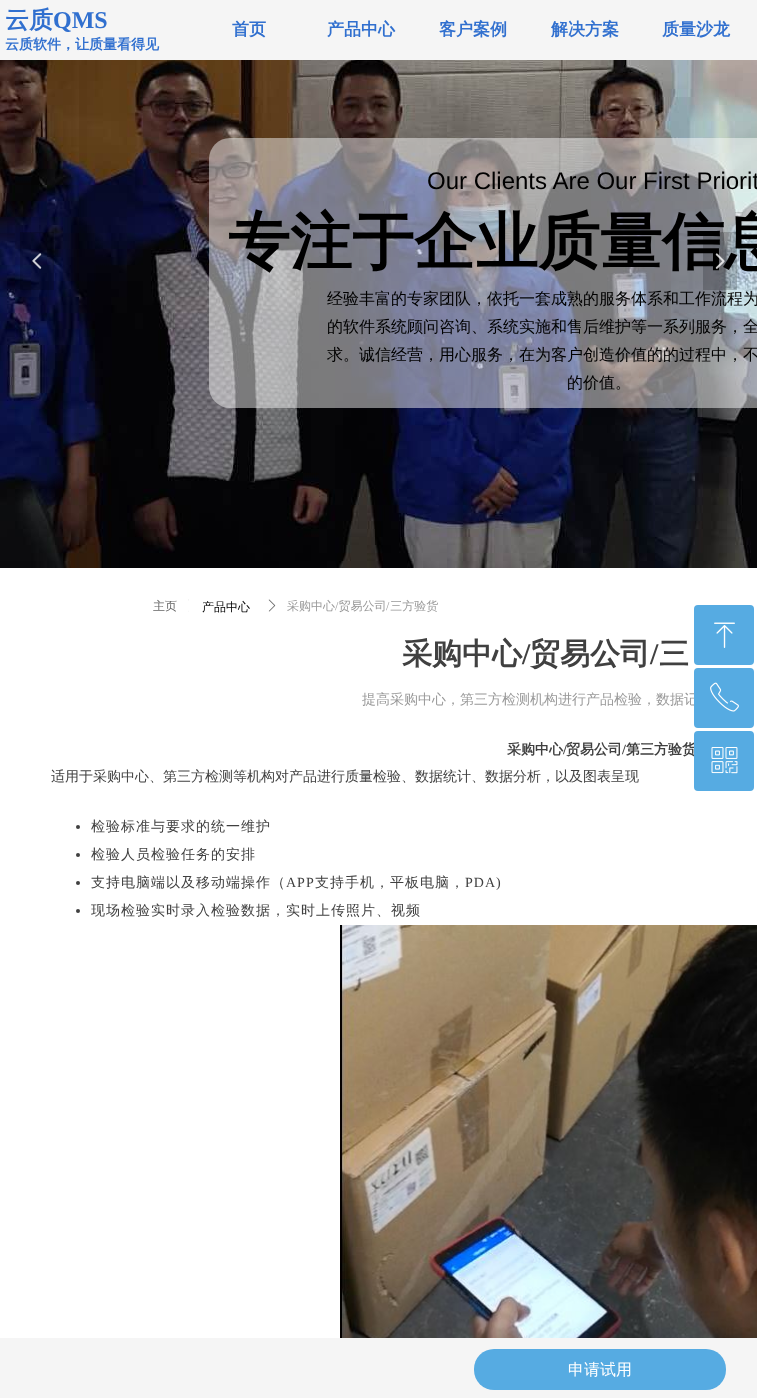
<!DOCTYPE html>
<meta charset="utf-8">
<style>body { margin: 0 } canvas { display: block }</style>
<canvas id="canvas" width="757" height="1398"></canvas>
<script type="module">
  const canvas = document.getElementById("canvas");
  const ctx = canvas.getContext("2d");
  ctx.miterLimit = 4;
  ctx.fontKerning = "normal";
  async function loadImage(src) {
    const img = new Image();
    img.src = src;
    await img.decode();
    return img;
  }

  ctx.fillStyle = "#ffffff";
  ctx.fillRect(0, 0, 757, 1398);
  ctx.fillStyle = "#f5f5f5";
  ctx.fillRect(0, 0, 757, 60);
  ctx.font = "bold 24px WenQuanYi Zen Hei";
  ctx.fillStyle = "#3170cf";
  ctx.fillText("云质", 5, 28);
  ctx.font = "bold 24px Liberation Serif";
  ctx.fillText("QMS", 53, 28);
  ctx.font = "bold 14px WenQuanYi Zen Hei";
  ctx.fillText("云质软件，让质量看得见", 5, 49);
  ctx.font = "bold 17px WenQuanYi Zen Hei";
  ctx.fillText("首页", 232, 35);
  ctx.fillText("产品中心", 327, 35);
  ctx.fillText("客户案例", 439, 35);
  ctx.fillText("解决方案", 551, 35);
  ctx.fillText("质量沙龙", 662, 35);
  ctx.drawImage(await loadImage("img2.png"), 0, 60, 757, 508);
  ctx.fillStyle = "rgba(0, 0, 0, 0.2)";
  ctx.fillRect(20, 232, 34, 58);
  ctx.drawImage(await loadImage("img1.png"), 32, 253, 10, 16);
  ctx.fillStyle = "rgba(255, 255, 255, 0.47)";
  ctx.beginPath();
  ctx.roundRect(209, 138, 548, 270, [21, 0, 0, 21]);
  ctx.fill();
  ctx.font = "24px Liberation Sans";
  ctx.fillStyle = "#000000";
  ctx.fillText("Our Clients Are Our First Priorit", 427, 189);
  ctx.font = "bold 62px WenQuanYi Zen Hei";
  ctx.fillText("专注于企业质量信息", 228, 263);
  ctx.font = "500 16px WenQuanYi Zen Hei";
  ctx.fillText("经验丰富的专家团队，依托一套成熟的服务体系和工作流程为", 327, 304);
  ctx.fillText("的软件系统顾问咨询、系统实施和售后维护等一系列服务，全", 327, 332);
  ctx.fillText("求。诚信经营，用心服务，在为客户创造价值的的过程中，不", 327, 360);
  ctx.fillText("的价值。", 567, 388);
  ctx.fillStyle = "rgba(0, 0, 0, 0.2)";
  ctx.fillRect(703, 232, 34, 58);
  ctx.drawImage(await loadImage("img3.png"), 715, 253, 10, 16);
  ctx.font = "500 12px WenQuanYi Zen Hei";
  ctx.fillStyle = "#666666";
  ctx.fillText("主页", 153, 610);
  ctx.drawImage(await loadImage("img4.png"), 188, 599, 1, 13);
  ctx.drawImage(await loadImage("img5.png"), 268, 599, 8, 13);
  ctx.fillStyle = "#999999";
  ctx.fillText("采购中心 贸易公司 三方验货", 287, 610);
  ctx.font = "12px Liberation Serif";
  ctx.fillText("/", 335, 610);
  ctx.fillText("/", 386, 610);
  ctx.font = "500 12px WenQuanYi Zen Hei";
  ctx.fillStyle = "#000000";
  ctx.fillText("产品中心", 202, 611);
  ctx.font = "bold 30px WenQuanYi Zen Hei";
  ctx.fillStyle = "#404040";
  ctx.fillText("采购中心", 402, 664);
  ctx.font = "bold 30px Liberation Serif";
  ctx.fillText("/", 522, 664);
  ctx.font = "bold 30px WenQuanYi Zen Hei";
  ctx.fillText("贸易公司", 530, 664);
  ctx.font = "bold 30px Liberation Serif";
  ctx.fillText("/", 650, 664);
  ctx.font = "bold 30px WenQuanYi Zen Hei";
  ctx.fillText("三", 659, 664);
  ctx.font = "500 14px WenQuanYi Zen Hei";
  ctx.fillStyle = "#999999";
  ctx.fillText("提高采购中心，第三方检测机构进行产品检验，数据记", 362, 704);
  ctx.font = "bold 14px WenQuanYi Zen Hei";
  ctx.fillStyle = "#404040";
  ctx.fillText("采购中心", 507, 754);
  ctx.font = "bold 14px Liberation Serif";
  ctx.fillText("/", 563, 754);
  ctx.font = "bold 14px WenQuanYi Zen Hei";
  ctx.fillText("贸易公司", 566, 754);
  ctx.font = "bold 14px Liberation Serif";
  ctx.fillText("/", 622, 754);
  ctx.font = "bold 14px WenQuanYi Zen Hei";
  ctx.fillText("第三方验货", 626, 754);
  ctx.font = "500 14px WenQuanYi Zen Hei";
  ctx.fillText("适用于采购中心、第三方检测等机构对产品进行质量检验、数据统计、数据分析，以及图表呈现", 51, 781);
  ctx.beginPath();
  ctx.arc(78, 827, 2, 0, Math.PI * 2);
  ctx.fill();
  ctx.letterSpacing = "1px";
  ctx.fillText("检验标准与要求的统一维护", 91, 831);
  ctx.beginPath();
  ctx.arc(78, 855, 2, 0, Math.PI * 2);
  ctx.fill();
  ctx.fillText("检验人员检验任务的安排", 91, 859);
  ctx.beginPath();
  ctx.arc(78, 883, 2, 0, Math.PI * 2);
  ctx.fill();
  ctx.fillText("支持电脑端以及移动端操作（", 91, 887);
  ctx.font = "14px Liberation Serif";
  ctx.fillText("APP", 286, 887);
  ctx.font = "500 14px WenQuanYi Zen Hei";
  ctx.fillText("支持手机，平板电脑，", 315, 887);
  ctx.font = "14px Liberation Serif";
  ctx.fillText("PDA)", 465, 887);
  ctx.beginPath();
  ctx.arc(78, 911, 2, 0, Math.PI * 2);
  ctx.fill();
  ctx.font = "500 14px WenQuanYi Zen Hei";
  ctx.fillText("现场检验实时录入检验数据，实时上传照片、视频", 91, 915);
  ctx.drawImage(await loadImage("img6.png"), 340, 925, 417, 413);
  ctx.fillStyle = "#f5f5f5";
  ctx.fillRect(0, 1338, 757, 60);
  ctx.fillStyle = "#56abe2";
  ctx.beginPath();
  ctx.roundRect(474, 1349, 252, 41, 20);
  ctx.fill();
  ctx.letterSpacing = "0px";
  ctx.font = "500 16px WenQuanYi Zen Hei";
  ctx.fillStyle = "#ffffff";
  ctx.fillText("申请试用", 568, 1375);
  ctx.fillStyle = "#56abe2";
  ctx.beginPath();
  ctx.roundRect(694, 605, 60, 60, 4);
  ctx.fill();
  ctx.drawImage(await loadImage("img7.png"), 714, 622, 21, 26);
  ctx.beginPath();
  ctx.roundRect(694, 668, 60, 60, 4);
  ctx.fill();
  ctx.drawImage(await loadImage("img8.png"), 710, 682, 29, 30);
  ctx.beginPath();
  ctx.roundRect(694, 731, 60, 60, 4);
  ctx.fill();
  ctx.drawImage(await loadImage("img9.png"), 711, 747, 27, 27);
</script>
